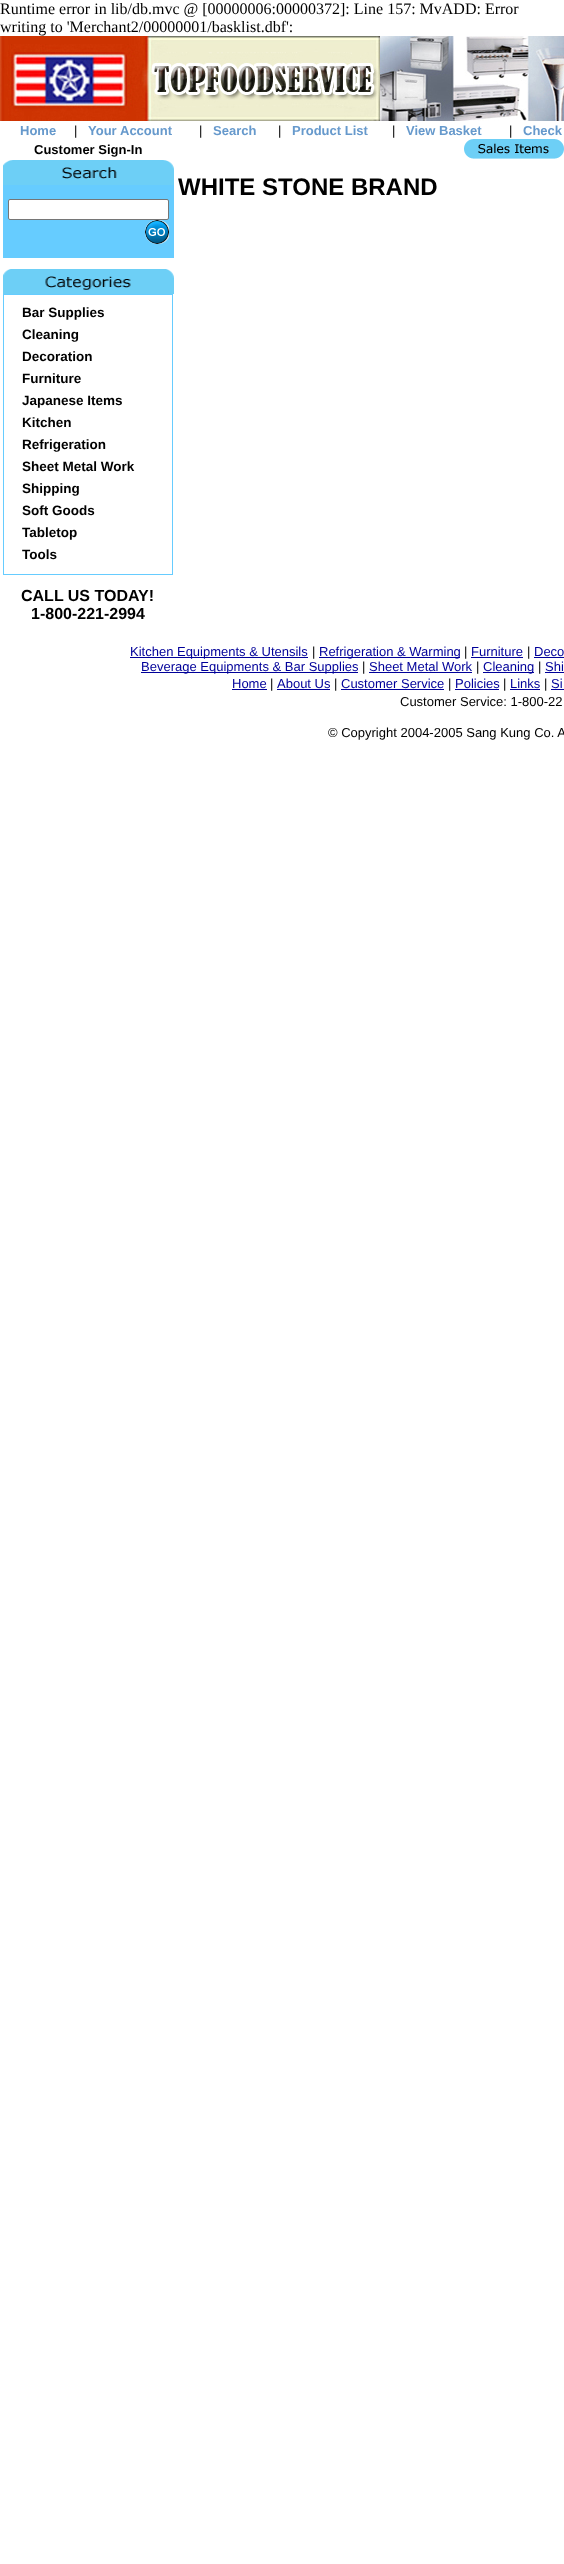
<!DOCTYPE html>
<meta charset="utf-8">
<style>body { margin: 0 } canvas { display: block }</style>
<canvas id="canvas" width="564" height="2564"></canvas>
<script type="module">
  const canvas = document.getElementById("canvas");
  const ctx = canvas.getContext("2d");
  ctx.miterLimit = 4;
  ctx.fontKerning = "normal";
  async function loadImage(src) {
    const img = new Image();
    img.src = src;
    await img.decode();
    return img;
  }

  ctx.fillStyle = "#ffffff";
  ctx.fillRect(0, 0, 564, 2564);
  ctx.font = "16px Liberation Serif";
  ctx.fillStyle = "#000000";
  ctx.fillText("Runtime error in lib/db.mvc @ [00000006:00000372]: Line 157: MvADD: Error", 0, 14);
  ctx.fillText("writing to 'Merchant2/00000001/basklist.dbf':", 0, 32);
  ctx.drawImage(await loadImage("img1.png"), 0, 36, 564, 85);
  ctx.font = "bold 13px Liberation Sans";
  ctx.fillStyle = "#6699cc";
  ctx.fillText("Home", 20, 135);
  ctx.font = "13px Liberation Sans";
  ctx.fillStyle = "#000000";
  ctx.fillText("|", 74, 135);
  ctx.font = "bold 13px Liberation Sans";
  ctx.fillStyle = "#6699cc";
  ctx.fillText("Your", 88, 135);
  ctx.fillText("Account", 120, 135);
  ctx.font = "13px Liberation Sans";
  ctx.fillStyle = "#000000";
  ctx.fillText("|", 199, 135);
  ctx.font = "bold 13px Liberation Sans";
  ctx.fillStyle = "#6699cc";
  ctx.fillText("Search", 213, 135);
  ctx.font = "13px Liberation Sans";
  ctx.fillStyle = "#000000";
  ctx.fillText("|", 278, 135);
  ctx.font = "bold 13px Liberation Sans";
  ctx.fillStyle = "#6699cc";
  ctx.fillText("Product List", 292, 135);
  ctx.font = "13px Liberation Sans";
  ctx.fillStyle = "#000000";
  ctx.fillText("|", 392, 135);
  ctx.font = "bold 13px Liberation Sans";
  ctx.fillStyle = "#6699cc";
  ctx.fillText("View Basket", 406, 135);
  ctx.font = "13px Liberation Sans";
  ctx.fillStyle = "#000000";
  ctx.fillText("|", 509, 135);
  ctx.font = "bold 13px Liberation Sans";
  ctx.fillStyle = "#6699cc";
  ctx.fillText("Check", 523, 135);
  ctx.fillStyle = "#000000";
  ctx.fillText("Customer Sign-In", 34, 154);
  ctx.fillStyle = "#66ccff";
  ctx.fillRect(3, 185, 171, 73);
  ctx.drawImage(await loadImage("img2.png"), 3, 160, 171, 25);
  ctx.fillStyle = "#ffffff";
  ctx.beginPath();
  ctx.roundRect(8.5, 199.5, 160, 20, 1.5);
  ctx.fill();
  ctx.strokeStyle = "#767676";
  ctx.stroke();
  ctx.drawImage(await loadImage("img3.png"), 145, 220, 24, 24);
  ctx.drawImage(await loadImage("img4.png"), 3, 269, 171, 25);
  ctx.strokeStyle = "#66ccff";
  ctx.strokeRect(3.5, 294.5, 169, 280);
  ctx.font = "bold 13.5px Liberation Sans";
  ctx.fillStyle = "#000000";
  ctx.fillText("Bar Supplies", 22, 317);
  ctx.fillText("Cleaning", 22, 339);
  ctx.fillText("Decoration", 22, 361);
  ctx.fillText("Furniture", 22, 383);
  ctx.fillText("Japanese Items", 22, 405);
  ctx.fillText("Kitchen", 22, 427);
  ctx.fillText("Refrigeration", 22, 449);
  ctx.fillText("Sheet Metal Work", 22, 471);
  ctx.fillText("Shipping", 22, 493);
  ctx.fillText("Soft Goods", 22, 515);
  ctx.fillText("Tabletop", 22, 537);
  ctx.fillText("Tools", 22, 559);
  ctx.font = "bold 16px Liberation Sans";
  ctx.fillText("CALL US TODAY!", 21, 601);
  ctx.fillText("1-800-221-2994", 31, 619);
  ctx.font = "bold 24px Liberation Sans";
  ctx.fillText("WHITE STONE BRAND", 178, 195);
  ctx.drawImage(await loadImage("img5.png"), 464, 139, 100, 20);
  ctx.fillStyle = "#000099";
  ctx.fillRect(130, 657, 178, 1);
  ctx.font = "13px Liberation Sans";
  ctx.fillText("Kitchen Equipments & Utensils", 130, 656);
  ctx.fillStyle = "#000000";
  ctx.fillText("|", 312, 656);
  ctx.fillStyle = "#000099";
  ctx.fillRect(319, 657, 141, 1);
  ctx.fillText("Refrigeration & Warming", 319, 656);
  ctx.fillStyle = "#000000";
  ctx.fillText("|", 464, 656);
  ctx.fillStyle = "#000099";
  ctx.fillText("Furniture", 471, 656);
  ctx.fillRect(471, 657, 52, 1);
  ctx.fillStyle = "#000000";
  ctx.fillText("|", 527, 656);
  ctx.fillStyle = "#000099";
  ctx.fillText("Deco", 534, 656);
  ctx.fillRect(534, 657, 30, 1);
  ctx.fillRect(141, 672, 217, 1);
  ctx.fillText("Beverage Equipments & Bar Supplies", 141, 671);
  ctx.fillStyle = "#000000";
  ctx.fillText("|", 362, 671);
  ctx.fillStyle = "#000099";
  ctx.fillText("Sheet Metal Work", 369, 671);
  ctx.fillRect(369, 672, 103, 1);
  ctx.fillStyle = "#000000";
  ctx.fillText("|", 476, 671);
  ctx.fillStyle = "#000099";
  ctx.fillRect(483, 672, 51, 1);
  ctx.fillText("Cleaning", 483, 671);
  ctx.fillStyle = "#000000";
  ctx.fillText("|", 538, 671);
  ctx.fillStyle = "#000099";
  ctx.fillText("Shi", 545, 671);
  ctx.fillRect(545, 672, 19, 1);
  ctx.fillText("Home", 232, 688);
  ctx.fillRect(232, 689, 35, 1);
  ctx.fillStyle = "#000000";
  ctx.fillText("|", 270, 688);
  ctx.fillStyle = "#000099";
  ctx.fillText("About Us", 277, 688);
  ctx.fillRect(277, 689, 53, 1);
  ctx.fillStyle = "#000000";
  ctx.fillText("|", 334, 688);
  ctx.fillStyle = "#000099";
  ctx.fillText("Customer Service", 341, 688);
  ctx.fillRect(341, 689, 103, 1);
  ctx.fillStyle = "#000000";
  ctx.fillText("|", 448, 688);
  ctx.fillStyle = "#000099";
  ctx.fillText("Policies", 455, 688);
  ctx.fillRect(455, 689, 44, 1);
  ctx.fillStyle = "#000000";
  ctx.fillText("|", 503, 688);
  ctx.fillStyle = "#000099";
  ctx.fillText("Links", 510, 688);
  ctx.fillRect(510, 689, 30, 1);
  ctx.fillStyle = "#000000";
  ctx.fillText("|", 544, 688);
  ctx.fillStyle = "#000099";
  ctx.fillText("Si", 551, 688);
  ctx.fillRect(551, 689, 13, 1);
  ctx.fillStyle = "#000000";
  ctx.fillText("Customer Service: 1-800-22", 400, 706);
  ctx.fillText("© Copyright 2004-2005 Sang Kung Co. A", 328, 737);
</script>
